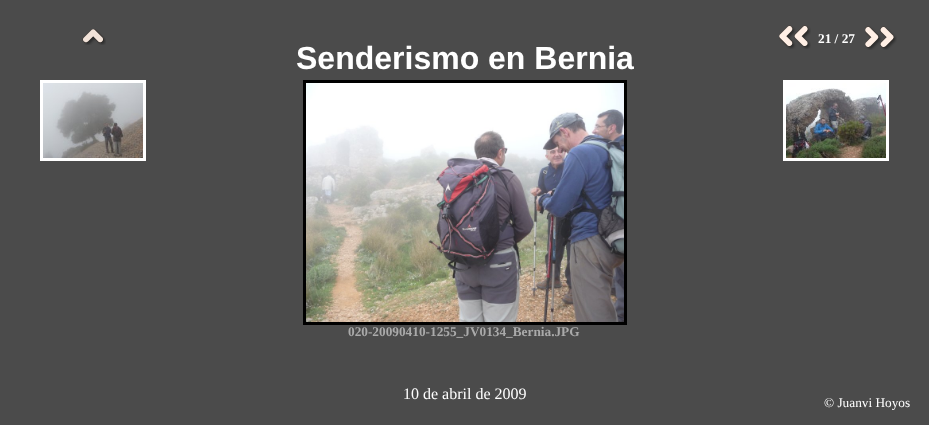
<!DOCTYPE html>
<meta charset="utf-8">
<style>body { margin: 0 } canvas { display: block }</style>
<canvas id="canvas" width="929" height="425"></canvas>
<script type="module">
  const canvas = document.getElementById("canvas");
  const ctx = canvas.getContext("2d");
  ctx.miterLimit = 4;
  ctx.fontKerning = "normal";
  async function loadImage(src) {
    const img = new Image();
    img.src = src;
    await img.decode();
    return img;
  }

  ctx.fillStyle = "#4b4b4b";
  ctx.fillRect(0, 0, 929, 425);
  ctx.drawImage(await loadImage("img1.png"), 82, 29, 24, 16);
  ctx.drawImage(await loadImage("img2.png"), 779, 25, 32, 24);
  ctx.font = "bold 13.3px Liberation Serif";
  ctx.fillStyle = "#ffffff";
  ctx.fillText("21 / 27", 818, 43);
  ctx.drawImage(await loadImage("img3.png"), 865, 26, 32, 24);
  ctx.font = "bold 32px Liberation Sans";
  ctx.fillText("Senderismo en Bernia", 296, 69);
  ctx.strokeStyle = "#ffffff";
  ctx.lineWidth = 3;
  ctx.strokeRect(41.5, 81.5, 103, 78);
  ctx.drawImage(await loadImage("img4.png"), 43, 83, 100, 75);
  ctx.strokeRect(784.5, 81.5, 103, 78);
  ctx.drawImage(await loadImage("img5.png"), 786, 83, 100, 75);
  ctx.strokeStyle = "#000000";
  ctx.strokeRect(304.5, 81.5, 321, 242);
  ctx.drawImage(await loadImage("img6.png"), 306, 83, 318, 239);
  ctx.font = "bold 13.3px Liberation Serif";
  ctx.fillStyle = "#aaaaaa";
  ctx.fillText("020-20090410-1255_JV0134_Bernia.JPG", 348, 336);
  ctx.font = "16px Liberation Serif";
  ctx.fillStyle = "#ffffff";
  ctx.fillText("10 de abril de 2009", 403, 399);
  ctx.font = "13.3px Liberation Serif";
  ctx.fillText("© Juanvi Hoyos", 824, 407);
</script>
